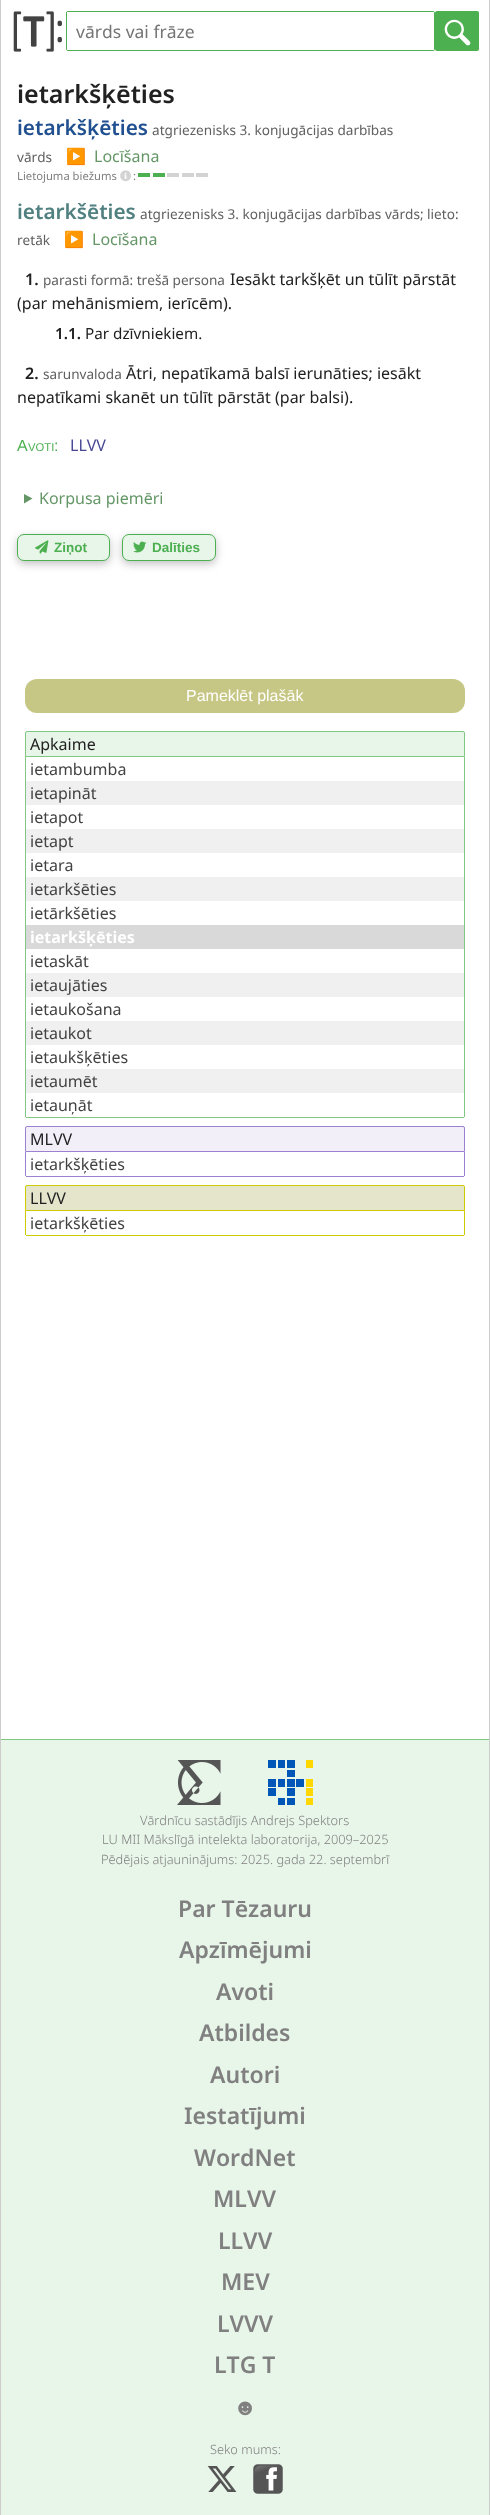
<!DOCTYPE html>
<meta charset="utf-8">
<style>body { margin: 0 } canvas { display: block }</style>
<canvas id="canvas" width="490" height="2515"></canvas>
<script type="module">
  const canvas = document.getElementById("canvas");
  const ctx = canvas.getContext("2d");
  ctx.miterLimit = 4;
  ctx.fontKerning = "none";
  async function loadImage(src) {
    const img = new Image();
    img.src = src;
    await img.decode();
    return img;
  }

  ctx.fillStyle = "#ffffff";
  ctx.fillRect(0, 0, 490, 2515);
  ctx.fillStyle = "#cccccc";
  ctx.fillRect(489, 0, 1, 2515);
  ctx.fillRect(0, 0, 1, 2515);
  ctx.drawImage(await loadImage("img1.png"), 13, 11, 49, 41);
  ctx.beginPath();
  ctx.roundRect(66.5, 11.5, 368, 39, 1.5);
  ctx.strokeStyle = "#4caf50";
  ctx.stroke();
  ctx.fillStyle = "#ffffff";
  ctx.fillRect(67, 12, 367, 38);
  ctx.font = "17.5px Noto Sans";
  ctx.fillStyle = "#757575";
  ctx.fillText("vārds vai frāze", 76, 38);
  ctx.fillStyle = "#4caf50";
  ctx.beginPath();
  ctx.roundRect(435, 11, 44, 40, 2);
  ctx.fill();
  ctx.drawImage(await loadImage("img2.png"), 444, 19, 27, 27);
  ctx.font = "600 25px Noto Sans";
  ctx.fillStyle = "#212121";
  ctx.fillText("ietarkšķēties", 17, 103);
  ctx.font = "600 20.75px Noto Sans";
  ctx.fillStyle = "#205090";
  ctx.fillText("ietarkšķēties", 17, 135);
  ctx.font = "13.6px Noto Sans";
  ctx.fillStyle = "#616161";
  ctx.fillText("atgriezenisks 3. konjugācijas darbības", 152, 135);
  ctx.fillText("vārds", 17, 162);
  ctx.font = "16px Noto Color Emoji";
  ctx.fillStyle = "#649666";
  ctx.fillText("▶", 66, 162);
  ctx.font = "16px Noto Sans";
  ctx.fillText("Locīšana", 94, 162);
  ctx.font = "11.25px Noto Sans";
  ctx.fillStyle = "#808080";
  ctx.fillText("Lietojuma biežums", 17, 180);
  ctx.drawImage(await loadImage("img3.png"), 120, 170, 11, 12);
  ctx.fillText(":", 133, 180);
  ctx.fillStyle = "#4caf50";
  ctx.fillRect(138, 173, 12, 4);
  ctx.fillRect(153, 173, 12, 4);
  ctx.fillStyle = "#d3d3d3";
  ctx.fillRect(167, 173, 12, 4);
  ctx.fillRect(182, 173, 12, 4);
  ctx.fillRect(196, 173, 12, 4);
  ctx.font = "600 20.75px Noto Sans";
  ctx.fillStyle = "#508080";
  ctx.fillText("ietarkšēties", 17, 219);
  ctx.font = "13.6px Noto Sans";
  ctx.fillStyle = "#616161";
  ctx.fillText("atgriezenisks 3. konjugācijas darbības vārds; lieto:", 140, 219);
  ctx.fillText("retāk", 17, 245);
  ctx.font = "16px Noto Color Emoji";
  ctx.fillStyle = "#649666";
  ctx.fillText("▶", 64, 245);
  ctx.font = "16px Noto Sans";
  ctx.fillText("Locīšana", 92, 245);
  ctx.font = "600 16px Noto Sans";
  ctx.fillStyle = "#212121";
  ctx.fillText("1.", 25, 285);
  ctx.font = "13.6px Noto Sans";
  ctx.fillStyle = "#616161";
  ctx.fillText("parasti formā: trešā persona", 43, 285);
  ctx.font = "16px Noto Sans";
  ctx.fillStyle = "#212121";
  ctx.fillText("Iesākt tarkšķēt un tūlīt pārstāt", 230, 285);
  ctx.fillText("(par mehānismiem, ierīcēm).", 17, 309);
  ctx.font = "600 15.25px Noto Sans";
  ctx.fillText("1.1.", 55, 339);
  ctx.font = "15.25px Noto Sans";
  ctx.fillText("Par dzīvniekiem.", 85, 339);
  ctx.font = "600 16px Noto Sans";
  ctx.fillText("2.", 25, 379);
  ctx.font = "13.6px Noto Sans";
  ctx.fillStyle = "#616161";
  ctx.fillText("sarunvaloda", 43, 379);
  ctx.font = "16px Noto Sans";
  ctx.fillStyle = "#212121";
  ctx.fillText("Ātri, nepatīkamā balsī ierunāties; iesākt", 126, 379);
  ctx.fillText("nepatīkami skanēt un tūlīt pārstāt (par balsi).", 17, 403);
  ctx.font = "16px Liberation Sans";
  ctx.fillStyle = "#4caf50";
  ctx.fillText("A", 17, 451);
  ctx.font = "11.25px Liberation Sans";
  ctx.fillText("VOTI", 28, 451);
  ctx.font = "16px Liberation Sans";
  ctx.fillText(":", 54, 451);
  ctx.font = "16px Noto Sans";
  ctx.fillStyle = "#474794";
  ctx.fillText("LLVV", 70, 451);
  ctx.fillStyle = "#649666";
  ctx.beginPath();
  ctx.moveTo(24, 494);
  ctx.lineTo(32.5, 498.5);
  ctx.lineTo(24, 503.5);
  ctx.closePath();
  ctx.fill();
  ctx.fillText("Korpusa piemēri", 39, 504);
  ctx.fillStyle = "rgba(0, 0, 0, 0.24)";
  ctx.filter = "blur(4px)";
  ctx.beginPath();
  ctx.roundRect(17, 537, 93, 27, 7);
  ctx.fill();
  ctx.filter = "none";
  ctx.fillStyle = "#e8f5e9";
  ctx.beginPath();
  ctx.roundRect(17.5, 534.5, 92, 26, 6.5);
  ctx.fill();
  ctx.stroke();
  ctx.drawImage(await loadImage("img4.png"), 35, 540, 14, 14);
  ctx.font = "bold 13.5px Liberation Sans";
  ctx.fillStyle = "#4caf50";
  ctx.fillText("Ziņot", 54, 552);
  ctx.fillStyle = "rgba(0, 0, 0, 0.24)";
  ctx.filter = "blur(4px)";
  ctx.beginPath();
  ctx.roundRect(122, 537, 94, 27, 7);
  ctx.fill();
  ctx.filter = "none";
  ctx.fillStyle = "#e8f5e9";
  ctx.beginPath();
  ctx.roundRect(122.5, 534.5, 93, 26, 6.5);
  ctx.fill();
  ctx.stroke();
  ctx.drawImage(await loadImage("img5.png"), 133, 541, 14, 12);
  ctx.fillStyle = "#4caf50";
  ctx.fillText("Dalīties", 152, 552);
  ctx.fillStyle = "#c7c785";
  ctx.beginPath();
  ctx.roundRect(25, 679, 440, 34, 12);
  ctx.fill();
  ctx.font = "16px Liberation Sans";
  ctx.fillStyle = "#ffffff";
  ctx.fillText("Pameklēt plašāk", 186, 701);
  ctx.fillStyle = "#e8f5e9";
  ctx.beginPath();
  ctx.roundRect(25.5, 731.5, 439, 25, [1.5, 1.5, 0, 0]);
  ctx.fill();
  ctx.strokeStyle = "#81c784";
  ctx.stroke();
  ctx.font = "16px Noto Sans";
  ctx.fillStyle = "#212121";
  ctx.fillText("Apkaime", 30, 750);
  ctx.fillStyle = "#81c784";
  ctx.fillRect(464, 757, 1, 360);
  ctx.fillRect(26, 1117, 438, 1);
  ctx.fillRect(25, 757, 1, 360);
  ctx.fillStyle = "#424242";
  ctx.fillText("ietambumba", 30, 775);
  ctx.fillStyle = "#f0f0f0";
  ctx.fillRect(26, 781, 438, 24);
  ctx.fillStyle = "#424242";
  ctx.fillText("ietapināt", 30, 799);
  ctx.fillText("ietapot", 30, 823);
  ctx.fillStyle = "#f0f0f0";
  ctx.fillRect(26, 829, 438, 24);
  ctx.fillStyle = "#424242";
  ctx.fillText("ietapt", 30, 847);
  ctx.fillText("ietara", 30, 871);
  ctx.fillStyle = "#f0f0f0";
  ctx.fillRect(26, 877, 438, 24);
  ctx.fillStyle = "#424242";
  ctx.fillText("ietarkšēties", 30, 895);
  ctx.fillText("ietārkšēties", 30, 919);
  ctx.fillStyle = "#d9d9d9";
  ctx.fillRect(26, 925, 438, 24);
  ctx.font = "bold 16px Noto Sans";
  ctx.fillStyle = "#ffffff";
  ctx.fillText("ietarkšķēties", 30, 943);
  ctx.font = "16px Noto Sans";
  ctx.fillStyle = "#424242";
  ctx.fillText("ietaskāt", 30, 967);
  ctx.fillStyle = "#f0f0f0";
  ctx.fillRect(26, 973, 438, 24);
  ctx.fillStyle = "#424242";
  ctx.fillText("ietaujāties", 30, 991);
  ctx.fillText("ietaukošana", 30, 1015);
  ctx.fillStyle = "#f0f0f0";
  ctx.fillRect(26, 1021, 438, 24);
  ctx.fillStyle = "#424242";
  ctx.fillText("ietaukot", 30, 1039);
  ctx.fillText("ietaukšķēties", 30, 1063);
  ctx.fillStyle = "#f0f0f0";
  ctx.fillRect(26, 1069, 438, 24);
  ctx.fillStyle = "#424242";
  ctx.fillText("ietaumēt", 30, 1087);
  ctx.fillText("ietauņāt", 30, 1111);
  ctx.fillStyle = "#f3eff9";
  ctx.beginPath();
  ctx.roundRect(25.5, 1126.5, 439, 25, [1.5, 1.5, 0, 0]);
  ctx.fill();
  ctx.strokeStyle = "#9b81cf";
  ctx.stroke();
  ctx.fillStyle = "#212121";
  ctx.fillText("MLVV", 30, 1145);
  ctx.fillStyle = "#9b81cf";
  ctx.fillRect(464, 1152, 1, 24);
  ctx.fillRect(26, 1176, 438, 1);
  ctx.fillRect(25, 1152, 1, 24);
  ctx.fillStyle = "#424242";
  ctx.fillText("ietarkšķēties", 30, 1170);
  ctx.fillStyle = "#e5e5cc";
  ctx.beginPath();
  ctx.roundRect(25.5, 1185.5, 439, 25, [1.5, 1.5, 0, 0]);
  ctx.fill();
  ctx.strokeStyle = "#cccc00";
  ctx.stroke();
  ctx.fillStyle = "#212121";
  ctx.fillText("LLVV", 30, 1204);
  ctx.fillStyle = "#cccc00";
  ctx.fillRect(464, 1211, 1, 24);
  ctx.fillRect(26, 1235, 438, 1);
  ctx.fillRect(25, 1211, 1, 24);
  ctx.fillStyle = "#424242";
  ctx.fillText("ietarkšķēties", 30, 1229);
  ctx.fillStyle = "#e8f5e9";
  ctx.fillRect(1, 1740, 488, 775);
  ctx.fillStyle = "#81c784";
  ctx.fillRect(1, 1739, 488, 1);
  ctx.drawImage(await loadImage("img6.png"), 177, 1760, 44, 45);
  ctx.drawImage(await loadImage("img7.png"), 268, 1760, 45, 45);
  ctx.font = "300 12.8px Noto Sans";
  ctx.fillStyle = "#808080";
  ctx.fillText("Vārdnīcu sastādījis Andrejs Spektors", 140, 1825);
  ctx.fillText("LU MII Mākslīgā intelekta laboratorija, 2009–2025", 102, 1844);
  ctx.fillText("Pēdējais atjauninājums: 2025. gada 22. septembrī", 101, 1864);
  ctx.font = "600 23px Noto Sans";
  ctx.fillText("Par Tēzauru", 178, 1917);
  ctx.fillText("Apzīmējumi", 179, 1958);
  ctx.fillText("Avoti", 216, 2000);
  ctx.fillText("Atbildes", 199, 2041);
  ctx.fillText("Autori", 210, 2083);
  ctx.fillText("Iestatījumi", 184, 2124);
  ctx.fillText("WordNet", 194, 2166);
  ctx.fillText("MLVV", 213, 2207);
  ctx.fillText("LLVV", 218, 2249);
  ctx.fillText("MEV", 221, 2290);
  ctx.fillText("LVVV", 217, 2332);
  ctx.fillText("LTG T", 214, 2373);
  ctx.font = "bold 23px Liberation Sans";
  ctx.fillText("☻", 233, 2415);
  ctx.font = "300 12.8px Noto Sans";
  ctx.fillText("Seko mums:", 210, 2454);
  ctx.drawImage(await loadImage("img8.png"), 207, 2466, 30, 26);
  ctx.drawImage(await loadImage("img9.png"), 253, 2464, 30, 30);
</script>
